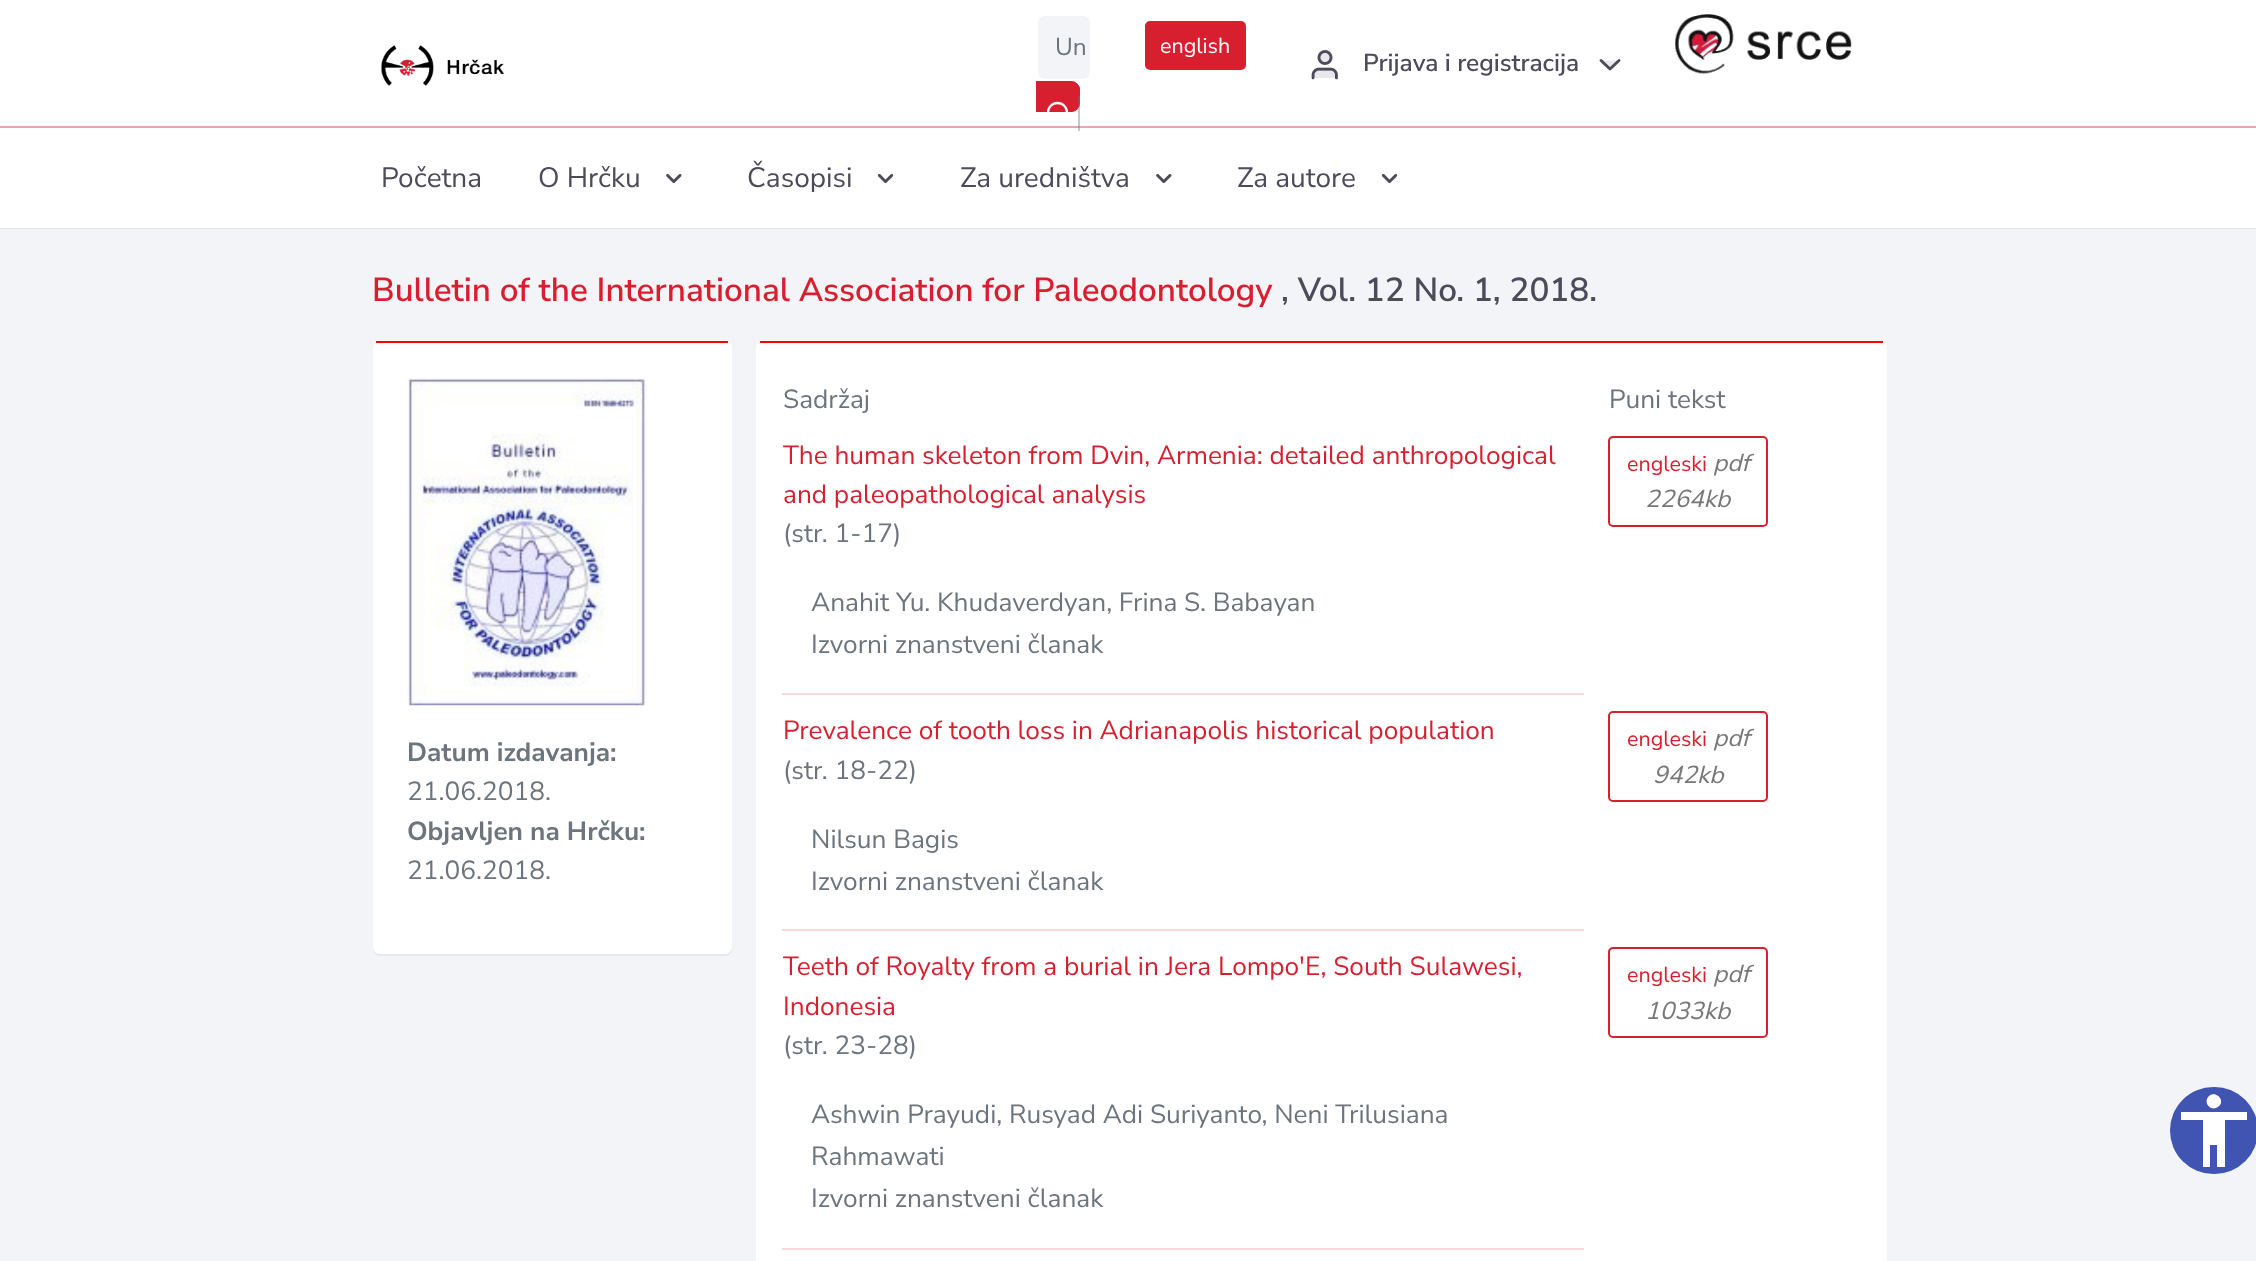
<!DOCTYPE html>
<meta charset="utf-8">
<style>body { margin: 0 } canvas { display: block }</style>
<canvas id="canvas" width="2256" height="1261"></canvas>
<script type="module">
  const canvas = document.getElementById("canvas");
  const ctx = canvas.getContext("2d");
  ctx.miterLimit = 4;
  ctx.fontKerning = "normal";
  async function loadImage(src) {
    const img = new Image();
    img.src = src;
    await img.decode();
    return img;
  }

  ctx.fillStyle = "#f3f4f7";
  ctx.fillRect(0, 0, 2256, 1261);
  ctx.fillStyle = "rgba(75, 75, 90, 0.07)";
  ctx.filter = "blur(0.5px)";
  ctx.beginPath();
  ctx.rect(0, 128, 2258, 101);
  ctx.fill();
  ctx.filter = "none";
  ctx.fillStyle = "#ffffff";
  ctx.fillRect(0, 128, 2256, 100);
  ctx.fillStyle = "#f1b1b6";
  ctx.fillRect(0, 126, 2256, 2);
  ctx.fillStyle = "rgba(75, 75, 90, 0.07)";
  ctx.filter = "blur(0.5px)";
  ctx.beginPath();
  ctx.rect(0, 2, 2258, 126);
  ctx.fill();
  ctx.filter = "none";
  ctx.fillStyle = "#ffffff";
  ctx.fillRect(0, 0, 2256, 126);
  ctx.drawImage(await loadImage("img1.png"), 381, 45, 123, 41);
  ctx.fillStyle = "#f3f4f7";
  ctx.beginPath();
  ctx.roundRect(1038, 16, 52, 63, 7);
  ctx.fill();
  ctx.font = "24.5px Nunito Sans";
  ctx.fillStyle = "#6c757d";
  ctx.fillText("Un", 1055, 55);
  ctx.fillStyle = "#d81f30";
  ctx.beginPath();
  ctx.roundRect(1036, 81, 44, 31, [0, 9, 9, 0]);
  ctx.fill();
  ctx.save();
  ctx.beginPath();
  ctx.rect(1036, 0, 56, 142);
  ctx.clip();
  ctx.beginPath();
  ctx.roundRect(1035, 82, 44, 29, [0, 8, 8, 0]);
  ctx.strokeStyle = "#d81f30";
  ctx.lineWidth = 2;
  ctx.stroke();
  ctx.restore();
  ctx.fillStyle = "rgba(112, 120, 128, 0.4)";
  ctx.fillRect(1078, 96, 2, 35);
  ctx.beginPath();
  ctx.arc(1057.5, 112.5, 9.5, 0, Math.PI * 2);
  ctx.strokeStyle = "#ffffff";
  ctx.lineWidth = 2.3;
  ctx.stroke();
  ctx.fillStyle = "#d81f30";
  ctx.beginPath();
  ctx.roundRect(1146, 22, 99, 47, 4);
  ctx.fill();
  ctx.strokeStyle = "#d81f30";
  ctx.lineWidth = 2;
  ctx.stroke();
  ctx.font = "21.5px Nunito Sans";
  ctx.fillStyle = "#ffffff";
  ctx.fillText("english", 1160, 53);
  ctx.drawImage(await loadImage("img2.png"), 1674, 14, 178, 60);
  ctx.drawImage(await loadImage("img3.png"), 1311, 50, 27, 30);
  ctx.font = "600 24.5px Nunito Sans";
  ctx.fillStyle = "#4b4b5a";
  ctx.fillText("Prijava i registracija", 1363, 71);
  ctx.fillStyle = "#e9e9eb";
  ctx.beginPath();
  ctx.moveTo(1601, 60.5);
  ctx.lineTo(1610, 69);
  ctx.lineTo(1619, 60.5);
  ctx.fill();
  ctx.strokeStyle = "#4b4b5a";
  ctx.lineWidth = 2.9;
  ctx.lineCap = "round";
  ctx.lineJoin = "round";
  ctx.stroke();
  ctx.font = "28px Nunito Sans";
  ctx.fillStyle = "#4b4b5a";
  ctx.fillText("Početna", 381, 187);
  ctx.fillText("O Hrčku", 538, 187);
  ctx.drawImage(await loadImage("img4.png"), 666, 174, 16, 10);
  ctx.fillText("Časopisi", 747, 187);
  ctx.drawImage(await loadImage("img5.png"), 877, 174, 17, 10);
  ctx.fillText("Za uredništva", 960, 187);
  ctx.drawImage(await loadImage("img4.png"), 1156, 174, 16, 10);
  ctx.fillText("Za autore", 1237, 187);
  ctx.drawImage(await loadImage("img5.png"), 1381, 174, 17, 10);
  ctx.font = "600 33.25px Nunito Sans";
  ctx.fillStyle = "#d81f30";
  ctx.fillText("Bulletin of the International Association for Paleodontology", 372, 301);
  ctx.fillStyle = "#4b4b5a";
  ctx.fillText(", Vol. 12 No. 1, 2018.", 1281, 301);
  ctx.fillStyle = "rgba(75, 75, 90, 0.07)";
  ctx.filter = "blur(0.5px)";
  ctx.beginPath();
  ctx.roundRect(373, 343, 359, 613, 7);
  ctx.fill();
  ctx.filter = "none";
  ctx.fillStyle = "#ffffff";
  ctx.beginPath();
  ctx.roundRect(373, 341, 359, 613, 7);
  ctx.fill();
  ctx.fillStyle = "#ff0000";
  ctx.fillRect(376, 341, 352, 2);
  ctx.drawImage(await loadImage("img6.png"), 407, 378, 239, 328);
  ctx.font = "bold 26.25px Nunito Sans";
  ctx.fillStyle = "#6c757d";
  ctx.fillText("Datum izdavanja:", 407, 761);
  ctx.font = "26.25px Nunito Sans";
  ctx.fillText("21.06.2018.", 407, 800);
  ctx.font = "bold 26.25px Nunito Sans";
  ctx.fillText("Objavljen na Hrčku:", 407, 840);
  ctx.font = "26.25px Nunito Sans";
  ctx.fillText("21.06.2018.", 407, 879);
  ctx.fillStyle = "rgba(75, 75, 90, 0.07)";
  ctx.filter = "blur(0.5px)";
  ctx.beginPath();
  ctx.roundRect(756, 343, 1131, 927, 7);
  ctx.fill();
  ctx.filter = "none";
  ctx.fillStyle = "#ffffff";
  ctx.beginPath();
  ctx.roundRect(756, 341, 1131, 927, 7);
  ctx.fill();
  ctx.fillStyle = "#ff0000";
  ctx.fillRect(760, 341, 1123, 2);
  ctx.fillStyle = "#6c757d";
  ctx.fillText("Sadržaj", 783, 408);
  ctx.fillText("Puni tekst", 1609, 408);
  ctx.fillStyle = "#d81f30";
  ctx.fillText("The human skeleton from Dvin, Armenia: detailed anthropological", 783, 464);
  ctx.fillText("and paleopathological analysis", 783, 503);
  ctx.fillStyle = "#6c757d";
  ctx.fillText("(str. 1-17)", 783, 542);
  ctx.fillText("Anahit Yu. Khudaverdyan, Frina S. Babayan", 811, 611);
  ctx.fillText("Izvorni znanstveni članak", 811, 653);
  ctx.fillStyle = "#f8d9dc";
  ctx.fillRect(782, 693, 802, 2);
  ctx.beginPath();
  ctx.roundRect(1609, 437, 158, 89, 4);
  ctx.strokeStyle = "#d81f30";
  ctx.lineWidth = 2;
  ctx.lineJoin = "miter";
  ctx.stroke();
  ctx.font = "21.5px Nunito Sans";
  ctx.fillStyle = "#d81f30";
  ctx.fillText("engleski", 1627, 471);
  ctx.font = "italic 24.5px Nunito Sans";
  ctx.fillStyle = "#787676";
  ctx.fillText("pdf", 1713, 471);
  ctx.fillText("2264kb", 1645, 507);
  ctx.font = "26.25px Nunito Sans";
  ctx.fillStyle = "#d81f30";
  ctx.fillText("Prevalence of tooth loss in Adrianapolis historical population", 783, 739);
  ctx.fillStyle = "#6c757d";
  ctx.fillText("(str. 18-22)", 783, 779);
  ctx.fillText("Nilsun Bagis", 811, 848);
  ctx.fillText("Izvorni znanstveni članak", 811, 890);
  ctx.fillStyle = "#f8d9dc";
  ctx.fillRect(782, 929, 802, 2);
  ctx.beginPath();
  ctx.roundRect(1609, 712, 158, 89, 4);
  ctx.stroke();
  ctx.font = "21.5px Nunito Sans";
  ctx.fillStyle = "#d81f30";
  ctx.fillText("engleski", 1627, 746);
  ctx.font = "italic 24.5px Nunito Sans";
  ctx.fillStyle = "#787676";
  ctx.fillText("pdf", 1713, 746);
  ctx.fillText("942kb", 1653, 783);
  ctx.font = "26.25px Nunito Sans";
  ctx.fillStyle = "#d81f30";
  ctx.fillText("Teeth of Royalty from a burial in Jera Lompo'E, South Sulawesi,", 783, 975);
  ctx.fillText("Indonesia", 783, 1015);
  ctx.fillStyle = "#6c757d";
  ctx.fillText("(str. 23-28)", 783, 1054);
  ctx.fillText("Ashwin Prayudi, Rusyad Adi Suriyanto, Neni Trilusiana", 811, 1123);
  ctx.fillText("Rahmawati", 811, 1165);
  ctx.fillText("Izvorni znanstveni članak", 811, 1207);
  ctx.fillStyle = "#f8d9dc";
  ctx.fillRect(782, 1248, 802, 2);
  ctx.beginPath();
  ctx.roundRect(1609, 948, 158, 89, 4);
  ctx.stroke();
  ctx.font = "21.5px Nunito Sans";
  ctx.fillStyle = "#d81f30";
  ctx.fillText("engleski", 1627, 982);
  ctx.font = "italic 24.5px Nunito Sans";
  ctx.fillStyle = "#787676";
  ctx.fillText("pdf", 1713, 982);
  ctx.fillText("1033kb", 1645, 1019);
  ctx.fillStyle = "#4054b2";
  ctx.beginPath();
  ctx.roundRect(2170, 1087, 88, 87, 43.5);
  ctx.fill();
  ctx.fillStyle = "#ffffff";
  ctx.beginPath();
  ctx.moveTo(2247, 1120);
  ctx.lineTo(2225, 1120);
  ctx.lineTo(2225, 1167);
  ctx.lineTo(2217, 1167);
  ctx.lineTo(2217, 1145);
  ctx.lineTo(2210, 1145);
  ctx.lineTo(2210, 1167);
  ctx.lineTo(2203, 1167);
  ctx.lineTo(2203, 1120);
  ctx.lineTo(2181, 1120);
  ctx.lineTo(2181, 1112);
  ctx.lineTo(2247, 1112);
  ctx.closePath();
  ctx.moveTo(2209, 1096);
  ctx.bezierCurveTo(2215, 1090, 2226, 1100, 2219, 1106);
  ctx.bezierCurveTo(2212, 1113, 2202, 1103, 2209, 1096);
  ctx.closePath();
  ctx.fill();
</script>
